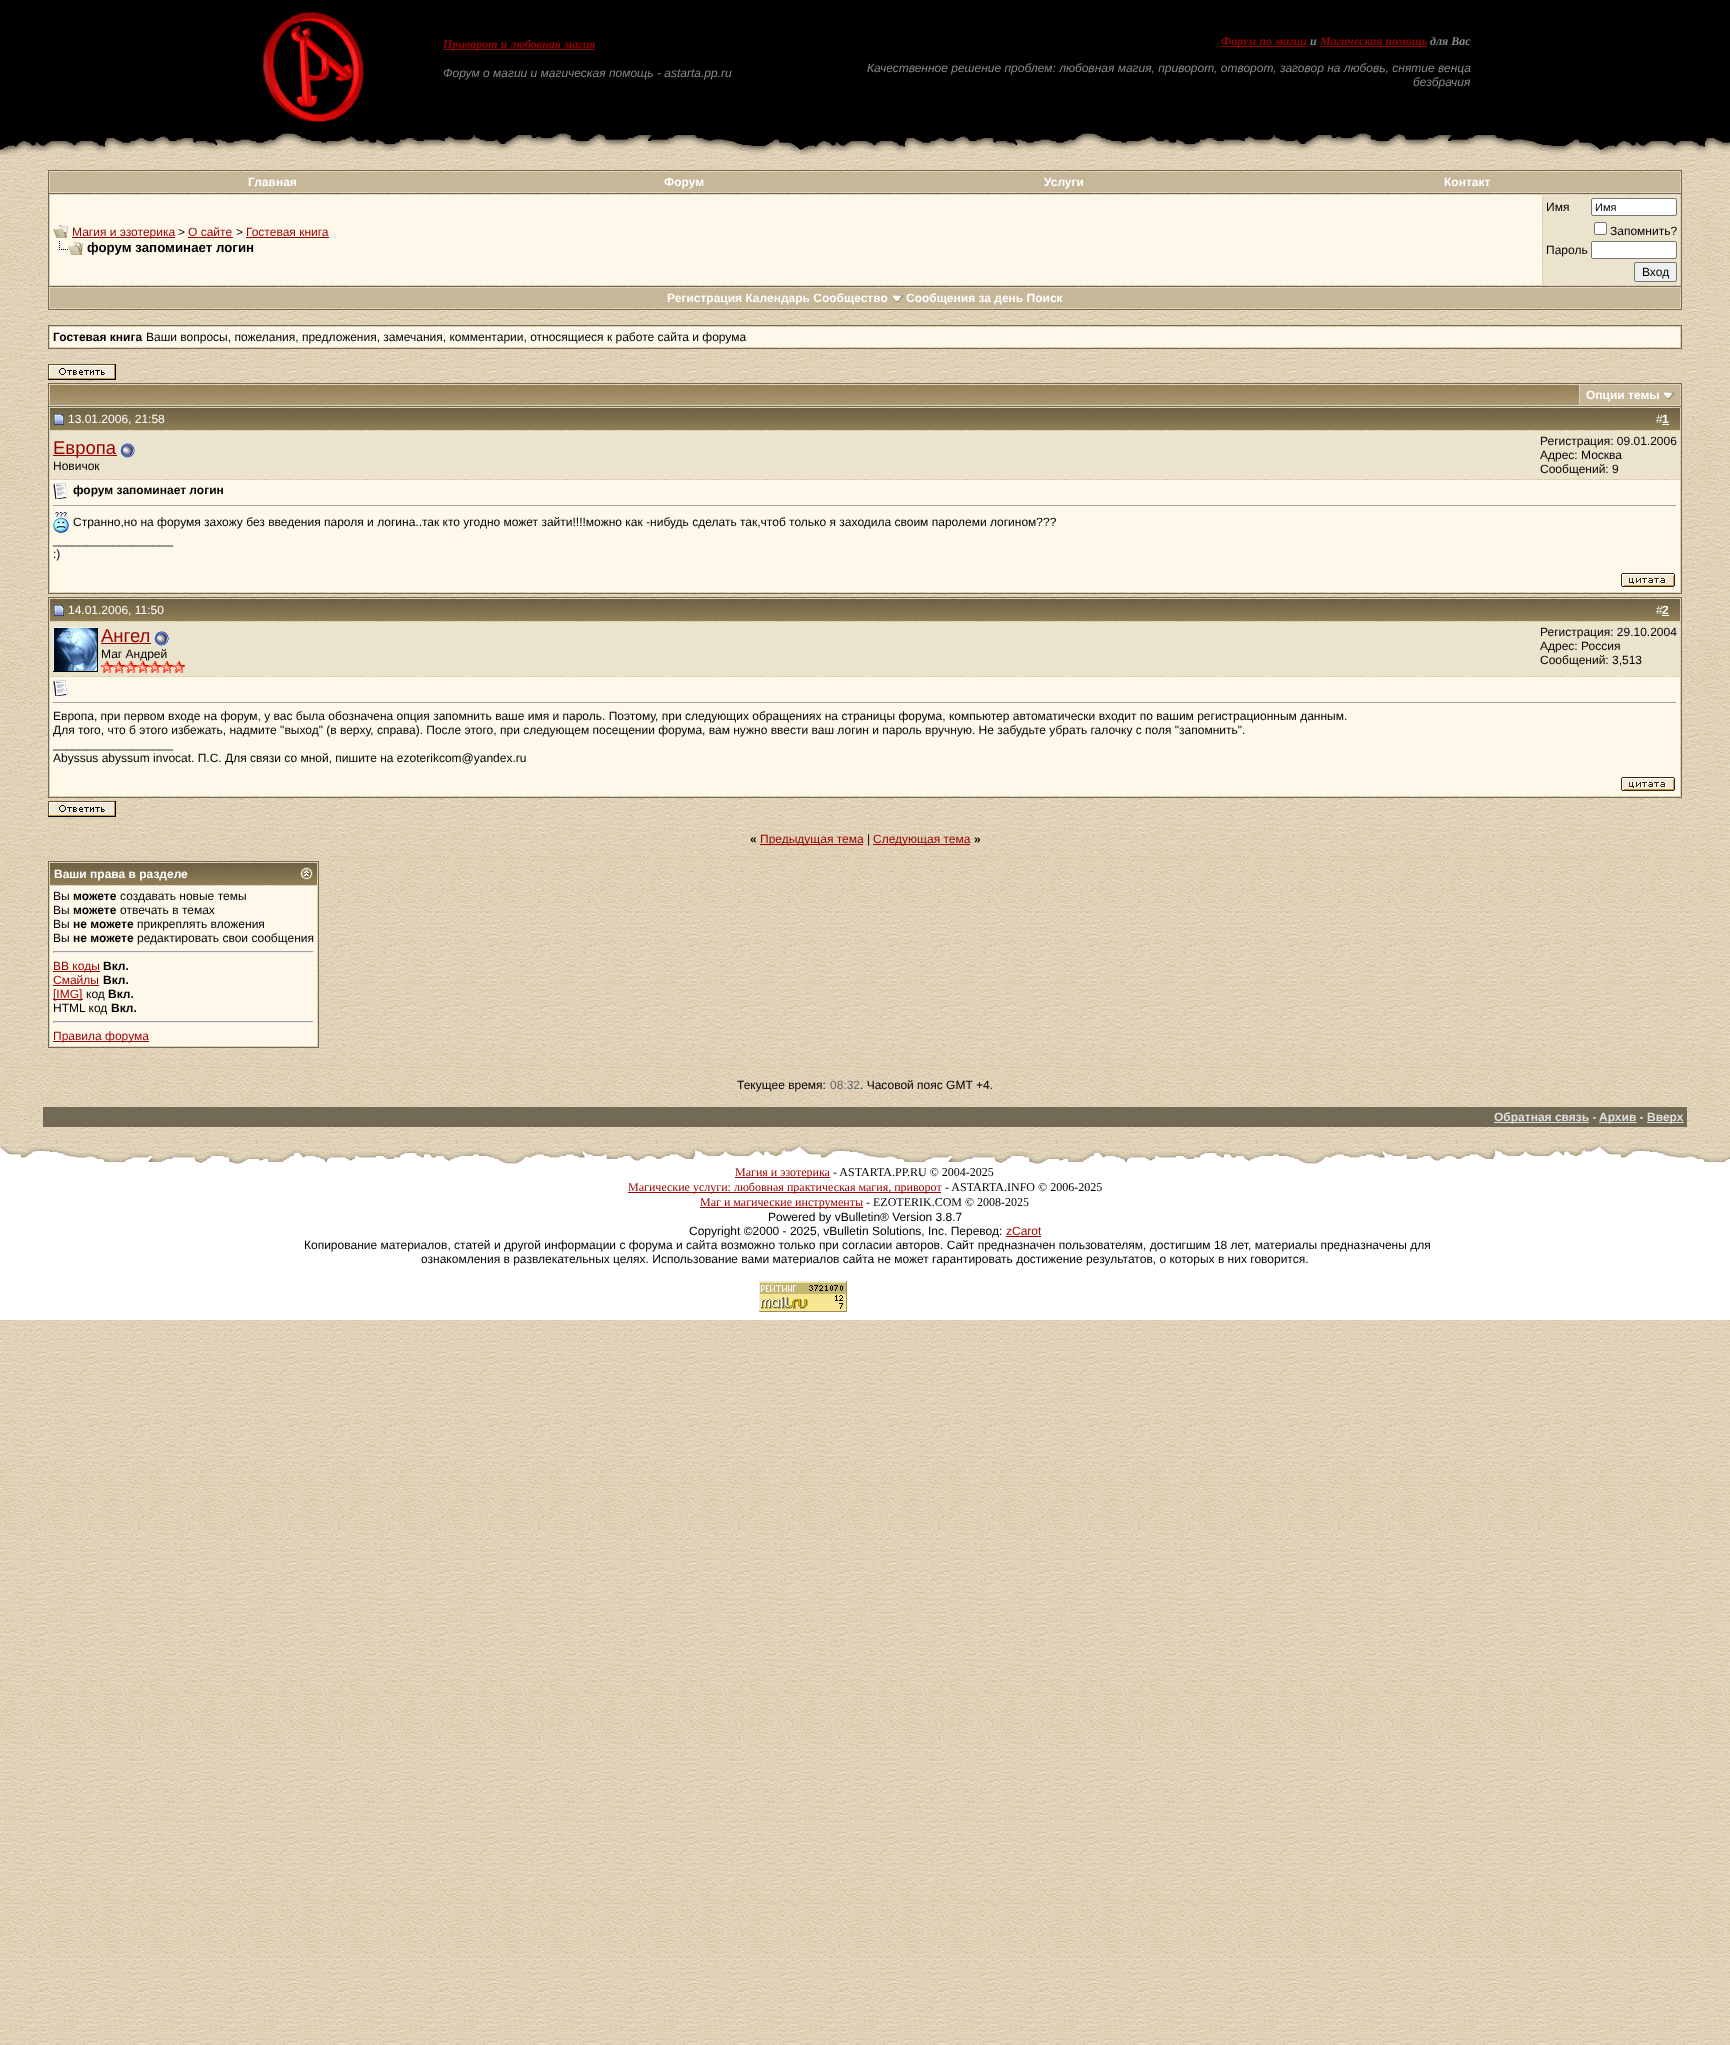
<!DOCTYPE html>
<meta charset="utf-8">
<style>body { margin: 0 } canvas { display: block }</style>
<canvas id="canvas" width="1730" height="2045"></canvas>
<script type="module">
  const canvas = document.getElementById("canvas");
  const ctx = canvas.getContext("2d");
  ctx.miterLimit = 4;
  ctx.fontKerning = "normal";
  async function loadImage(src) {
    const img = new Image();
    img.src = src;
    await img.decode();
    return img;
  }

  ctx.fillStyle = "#ffffff";
  ctx.fillRect(0, 0, 1730, 2045);
  ctx.drawImage(await loadImage("img1.png"), 0, 155, 1730, 1890);
  ctx.fillStyle = "#000000";
  ctx.fillRect(0, 0, 1730, 133);
  ctx.drawImage(await loadImage("img2.png"), 0, 133, 1730, 22);
  ctx.drawImage(await loadImage("img3.png"), 262, 11, 102, 111);
  ctx.fillStyle = "#990000";
  ctx.fillRect(443, 49, 152, 1);
  ctx.font = "italic bold 12px Liberation Serif";
  ctx.fillText("Приворот и любовная магия", 443, 48);
  ctx.font = "italic 12px Liberation Sans";
  ctx.fillStyle = "#888888";
  ctx.fillText("Форум о магии и магическая помощь - astarta.pp.ru", 443, 77);
  ctx.fillStyle = "#990000";
  ctx.fillRect(1221, 46, 86, 1);
  ctx.font = "italic bold 12px Liberation Serif";
  ctx.fillText("Форум по магии", 1221, 45);
  ctx.fillStyle = "#888888";
  ctx.fillText("и", 1310, 45);
  ctx.fillStyle = "#990000";
  ctx.fillRect(1320, 46, 107, 1);
  ctx.fillText("Магическая помощь", 1320, 45);
  ctx.fillStyle = "#888888";
  ctx.fillText("для Вас", 1430, 45);
  ctx.font = "italic 12px Liberation Sans";
  ctx.fillText("Качественное решение проблем: любовная магия, приворот, отворот, заговор на любовь, снятие венца", 867, 72);
  ctx.fillText("безбрачия", 1413, 86);
  ctx.fillStyle = "#736a55";
  ctx.fillRect(48, 170, 1634, 1);
  ctx.fillRect(1681, 170, 1, 23);
  ctx.fillRect(48, 170, 1, 23);
  ctx.fillStyle = "#c5b797";
  ctx.fillRect(50, 172, 1630, 20);
  ctx.font = "bold 12px Liberation Sans";
  ctx.fillStyle = "#ffffff";
  ctx.fillText("Главная", 248, 186);
  ctx.fillText("Форум", 664, 186);
  ctx.fillText("Услуги", 1044, 186);
  ctx.fillText("Контакт", 1444, 186);
  ctx.strokeStyle = "#736a55";
  ctx.strokeRect(48.5, 193.5, 1633, 93);
  ctx.fillStyle = "#fef8eb";
  ctx.fillRect(50, 195, 1492, 90);
  ctx.drawImage(await loadImage("img4.png"), 53, 225, 15, 13);
  ctx.fillStyle = "#990000";
  ctx.fillRect(72, 237, 103, 1);
  ctx.font = "12px Liberation Sans";
  ctx.fillText("Магия и эзотерика", 72, 236);
  ctx.fillStyle = "#000000";
  ctx.fillText(">", 178, 236);
  ctx.fillStyle = "#990000";
  ctx.fillText("О сайте", 188, 236);
  ctx.fillRect(188, 237, 45, 1);
  ctx.fillStyle = "#000000";
  ctx.fillText(">", 236, 236);
  ctx.fillStyle = "#990000";
  ctx.fillText("Гостевая книга", 246, 236);
  ctx.fillRect(246, 237, 83, 1);
  ctx.drawImage(await loadImage("img5.png"), 59, 241, 24, 14);
  ctx.font = "bold 13.3px Liberation Sans";
  ctx.fillStyle = "#000000";
  ctx.fillText("форум запоминает логин", 87, 252);
  ctx.fillStyle = "#ece3cd";
  ctx.fillRect(1543, 195, 137, 90);
  ctx.font = "12px Liberation Sans";
  ctx.fillStyle = "#000000";
  ctx.fillText("Имя", 1546, 211);
  ctx.fillStyle = "#ffffff";
  ctx.beginPath();
  ctx.roundRect(1591.5, 198.5, 85, 17, 1.5);
  ctx.fill();
  ctx.strokeStyle = "#767676";
  ctx.stroke();
  ctx.font = "11px Liberation Sans";
  ctx.fillStyle = "#000000";
  ctx.fillText("Имя", 1595, 211);
  ctx.fillStyle = "#ffffff";
  ctx.beginPath();
  ctx.roundRect(1594.5, 222.5, 12, 12, 1.5);
  ctx.fill();
  ctx.stroke();
  ctx.font = "12px Liberation Sans";
  ctx.fillStyle = "#000000";
  ctx.fillText("Запомнить?", 1610, 235);
  ctx.fillText("Пароль", 1546, 254);
  ctx.fillStyle = "#ffffff";
  ctx.beginPath();
  ctx.roundRect(1591.5, 241.5, 85, 17, 1.5);
  ctx.fill();
  ctx.stroke();
  ctx.fillStyle = "#efefef";
  ctx.beginPath();
  ctx.roundRect(1634.5, 262.5, 42, 19, 1.5);
  ctx.fill();
  ctx.stroke();
  ctx.fillStyle = "#000000";
  ctx.fillText("Вход", 1642, 276);
  ctx.fillStyle = "#736a55";
  ctx.fillRect(1681, 287, 1, 23);
  ctx.fillRect(48, 309, 1634, 1);
  ctx.fillRect(48, 287, 1, 23);
  ctx.fillStyle = "#c5b797";
  ctx.fillRect(50, 288, 1630, 20);
  ctx.font = "bold 12px Liberation Sans";
  ctx.fillStyle = "#ffffff";
  ctx.fillText("Регистрация Календарь Сообщество", 667, 302);
  ctx.drawImage(await loadImage("img6.png"), 892, 295, 11, 7);
  ctx.fillText("Сообщения за день Поиск", 906, 302);
  ctx.strokeStyle = "#736a55";
  ctx.strokeRect(48.5, 325.5, 1633, 23);
  ctx.fillStyle = "#fef8eb";
  ctx.fillRect(50, 327, 1630, 20);
  ctx.fillStyle = "#000000";
  ctx.fillText("Гостевая книга", 53, 341);
  ctx.font = "12px Liberation Sans";
  ctx.fillText("Ваши вопросы, пожелания, предложения, замечания, комментарии, относящиеся к работе сайта и форума", 146, 341);
  ctx.drawImage(await loadImage("img7.png"), 48, 364, 68, 16);
  ctx.fillStyle = "#736a55";
  ctx.fillRect(48, 383, 1634, 1);
  ctx.fillRect(1681, 383, 1, 23);
  ctx.fillRect(48, 383, 1, 23);
  ctx.drawImage(await loadImage("img8.png"), 50, 385, 1529, 20);
  ctx.fillStyle = "#c5b797";
  ctx.fillRect(1580, 385, 100, 20);
  ctx.font = "bold 12px Liberation Sans";
  ctx.fillStyle = "#ffffff";
  ctx.fillText("Опции темы", 1586, 399);
  ctx.drawImage(await loadImage("img6.png"), 1663, 392, 11, 7);
  ctx.strokeRect(48.5, 406.5, 1633, 187);
  ctx.drawImage(await loadImage("img9.png"), 50, 408, 1630, 22);
  ctx.drawImage(await loadImage("img10.png"), 54, 414, 10, 11);
  ctx.font = "12px Liberation Sans";
  ctx.fillText("13.01.2006, 21:58", 68, 423);
  ctx.fillText("#", 1656, 423);
  ctx.font = "bold 12px Liberation Sans";
  ctx.fillText("1", 1662, 423);
  ctx.fillRect(1662, 424, 7, 1);
  ctx.fillStyle = "#ece3cd";
  ctx.fillRect(50, 431, 1630, 48);
  ctx.fillStyle = "#990000";
  ctx.fillRect(53, 455, 64, 1);
  ctx.font = "18.5px Liberation Sans";
  ctx.fillText("Европа", 53, 454);
  ctx.drawImage(await loadImage("img11.png"), 120, 443, 15, 15);
  ctx.font = "12px Liberation Sans";
  ctx.fillStyle = "#000000";
  ctx.fillText("Новичок", 53, 470);
  ctx.fillText("Регистрация: 09.01.2006", 1540, 445);
  ctx.fillText("Адрес: Москва", 1540, 459);
  ctx.fillText("Сообщений: 9", 1540, 473);
  ctx.fillStyle = "#fef8eb";
  ctx.fillRect(50, 480, 1630, 112);
  ctx.drawImage(await loadImage("img12.png"), 53, 483, 15, 16);
  ctx.font = "bold 12px Liberation Sans";
  ctx.fillStyle = "#000000";
  ctx.fillText("форум запоминает логин", 73, 494);
  ctx.fillStyle = "#9f9f9f";
  ctx.fillRect(53, 505, 1624, 1);
  ctx.fillStyle = "#eeeeee";
  ctx.fillRect(1676, 505, 1, 1);
  ctx.drawImage(await loadImage("img13.png"), 53, 512, 16, 21);
  ctx.font = "12px Liberation Sans";
  ctx.fillStyle = "#000000";
  ctx.fillText("Странно,но на форумя захожу без введения пароля и логина..так кто угодно может зайти!!!!можно как -нибудь сделать так,чтоб только я заходила своим паролеми логином???", 73, 526);
  ctx.fillText("__________________", 53, 544);
  ctx.fillText(":)", 53, 558);
  ctx.drawImage(await loadImage("img14.png"), 1621, 573, 54, 14);
  ctx.strokeRect(48.5, 597.5, 1633, 200);
  ctx.drawImage(await loadImage("img9.png"), 50, 599, 1630, 22);
  ctx.drawImage(await loadImage("img10.png"), 54, 605, 10, 11);
  ctx.fillStyle = "#ffffff";
  ctx.fillText("14.01.2006, 11:50", 68, 614);
  ctx.fillText("#", 1656, 614);
  ctx.font = "bold 12px Liberation Sans";
  ctx.fillText("2", 1662, 614);
  ctx.fillRect(1662, 615, 7, 1);
  ctx.fillStyle = "#ece3cd";
  ctx.fillRect(50, 622, 1630, 54);
  ctx.drawImage(await loadImage("img15.png"), 53, 627, 45, 45);
  ctx.font = "18.5px Liberation Sans";
  ctx.fillStyle = "#990000";
  ctx.fillText("Ангел", 101, 642);
  ctx.fillRect(101, 643, 50, 1);
  ctx.drawImage(await loadImage("img11.png"), 154, 631, 15, 15);
  ctx.font = "12px Liberation Sans";
  ctx.fillStyle = "#000000";
  ctx.fillText("Маг Андрей", 101, 658);
  ctx.drawImage(await loadImage("img16.png"), 101, 661, 12, 12);
  ctx.drawImage(await loadImage("img16.png"), 113, 661, 12, 12);
  ctx.drawImage(await loadImage("img16.png"), 125, 661, 12, 12);
  ctx.drawImage(await loadImage("img16.png"), 137, 661, 12, 12);
  ctx.drawImage(await loadImage("img16.png"), 149, 661, 12, 12);
  ctx.drawImage(await loadImage("img16.png"), 161, 661, 12, 12);
  ctx.drawImage(await loadImage("img16.png"), 173, 661, 12, 12);
  ctx.fillText("Регистрация: 29.10.2004", 1540, 636);
  ctx.fillText("Адрес: Россия", 1540, 650);
  ctx.fillText("Сообщений: 3,513", 1540, 664);
  ctx.fillStyle = "#fef8eb";
  ctx.fillRect(50, 677, 1630, 119);
  ctx.drawImage(await loadImage("img12.png"), 53, 680, 15, 16);
  ctx.fillStyle = "#9f9f9f";
  ctx.fillRect(53, 702, 1624, 1);
  ctx.fillStyle = "#eeeeee";
  ctx.fillRect(1676, 702, 1, 1);
  ctx.fillStyle = "#000000";
  ctx.fillText("Европа, при первом входе на форум, у вас была обозначена опция запомнить ваше имя и пароль. Поэтому, при следующих обращениях на страницы форума, компьютер автоматически входит по вашим регистрационным данным.", 53, 720);
  ctx.fillText("Для того, что б этого избежать, надмите \"выход\" (в верху, справа). После этого, при следующем посещении форума, вам нужно ввести ваш логин и пароль вручную. Не забудьте убрать галочку с поля \"запомнить\".", 53, 734);
  ctx.fillText("__________________", 53, 748);
  ctx.fillText("Abyssus abyssum invocat. П.С. Для связи со мной, пишите на ezoterikcom@yandex.ru", 53, 762);
  ctx.drawImage(await loadImage("img14.png"), 1621, 777, 54, 14);
  ctx.drawImage(await loadImage("img7.png"), 48, 801, 68, 16);
  ctx.font = "bold 12px Liberation Sans";
  ctx.fillText("«", 750, 843);
  ctx.fillStyle = "#990000";
  ctx.fillRect(760, 844, 103, 1);
  ctx.font = "12px Liberation Sans";
  ctx.fillText("Предыдущая тема", 760, 843);
  ctx.fillStyle = "#000000";
  ctx.fillText("|", 867, 843);
  ctx.fillStyle = "#990000";
  ctx.fillRect(873, 844, 97, 1);
  ctx.fillText("Следующая тема", 873, 843);
  ctx.font = "bold 12px Liberation Sans";
  ctx.fillStyle = "#000000";
  ctx.fillText("»", 974, 843);
  ctx.strokeRect(48.5, 861.5, 270, 186);
  ctx.drawImage(await loadImage("img17.png"), 50, 863, 267, 22);
  ctx.fillStyle = "#ffffff";
  ctx.fillText("Ваши права в разделе", 54, 878);
  ctx.drawImage(await loadImage("img18.png"), 300, 867, 13, 13);
  ctx.fillStyle = "#fef8eb";
  ctx.fillRect(50, 886, 267, 160);
  ctx.font = "12px Liberation Sans";
  ctx.fillStyle = "#000000";
  ctx.fillText("Вы", 53, 900);
  ctx.font = "bold 12px Liberation Sans";
  ctx.fillText("можете", 73, 900);
  ctx.font = "12px Liberation Sans";
  ctx.fillText("создавать новые темы", 120, 900);
  ctx.fillText("Вы", 53, 914);
  ctx.font = "bold 12px Liberation Sans";
  ctx.fillText("можете", 73, 914);
  ctx.font = "12px Liberation Sans";
  ctx.fillText("отвечать в темах", 120, 914);
  ctx.fillText("Вы", 53, 928);
  ctx.font = "bold 12px Liberation Sans";
  ctx.fillText("не можете", 73, 928);
  ctx.font = "12px Liberation Sans";
  ctx.fillText("прикреплять вложения", 137, 928);
  ctx.fillText("Вы", 53, 942);
  ctx.font = "bold 12px Liberation Sans";
  ctx.fillText("не можете", 73, 942);
  ctx.font = "12px Liberation Sans";
  ctx.fillText("редактировать свои сообщения", 137, 942);
  ctx.fillStyle = "#9f9f9f";
  ctx.fillRect(53, 951, 261, 1);
  ctx.fillStyle = "#eeeeee";
  ctx.fillRect(313, 951, 1, 2);
  ctx.fillRect(53, 952, 261, 1);
  ctx.fillStyle = "#9f9f9f";
  ctx.fillRect(53, 951, 1, 2);
  ctx.fillStyle = "#990000";
  ctx.fillRect(53, 971, 47, 1);
  ctx.fillText("BB коды", 53, 970);
  ctx.font = "bold 12px Liberation Sans";
  ctx.fillStyle = "#000000";
  ctx.fillText("Вкл.", 103, 970);
  ctx.font = "12px Liberation Sans";
  ctx.fillStyle = "#990000";
  ctx.fillText("Смайлы", 53, 984);
  ctx.fillRect(53, 985, 46, 1);
  ctx.font = "bold 12px Liberation Sans";
  ctx.fillStyle = "#000000";
  ctx.fillText("Вкл.", 103, 984);
  ctx.fillStyle = "#990000";
  ctx.fillRect(53, 999, 30, 1);
  ctx.font = "12px Liberation Sans";
  ctx.fillText("[IMG]", 53, 998);
  ctx.fillStyle = "#000000";
  ctx.fillText("код", 86, 998);
  ctx.font = "bold 12px Liberation Sans";
  ctx.fillText("Вкл.", 108, 998);
  ctx.font = "12px Liberation Sans";
  ctx.fillText("HTML код", 53, 1012);
  ctx.font = "bold 12px Liberation Sans";
  ctx.fillText("Вкл.", 111, 1012);
  ctx.fillStyle = "#9f9f9f";
  ctx.fillRect(53, 1021, 261, 1);
  ctx.fillStyle = "#eeeeee";
  ctx.fillRect(313, 1021, 1, 2);
  ctx.fillRect(53, 1022, 261, 1);
  ctx.fillStyle = "#9f9f9f";
  ctx.fillRect(53, 1021, 1, 2);
  ctx.fillStyle = "#990000";
  ctx.fillRect(53, 1041, 96, 1);
  ctx.font = "12px Liberation Sans";
  ctx.fillText("Правила форума", 53, 1040);
  ctx.fillStyle = "#000000";
  ctx.fillText("Текущее время:", 737, 1089);
  ctx.fillStyle = "#666666";
  ctx.fillText("08:32", 830, 1089);
  ctx.fillStyle = "#000000";
  ctx.fillText(". Часовой пояс GMT +4.", 860, 1089);
  ctx.fillStyle = "#736a55";
  ctx.fillRect(43, 1107, 1644, 20);
  ctx.fillStyle = "#e0e0e0";
  ctx.fillRect(1494, 1122, 95, 1);
  ctx.font = "bold 12px Liberation Sans";
  ctx.fillText("Обратная связь -", 1494, 1121);
  ctx.fillRect(1599, 1122, 38, 1);
  ctx.fillText("Архив -", 1599, 1121);
  ctx.fillRect(1647, 1122, 37, 1);
  ctx.fillText("Вверх", 1647, 1121);
  ctx.fillStyle = "#ffffff";
  ctx.fillRect(0, 1164, 1730, 156);
  ctx.drawImage(await loadImage("img19.png"), 0, 1142, 1730, 22);
  ctx.fillStyle = "#990000";
  ctx.fillRect(735, 1177, 95, 1);
  ctx.font = "12px Liberation Serif";
  ctx.fillText("Магия и эзотерика", 735, 1176);
  ctx.fillStyle = "#000000";
  ctx.fillText("- ASTARTA.PP.RU © 2004-2025", 833, 1176);
  ctx.fillStyle = "#990000";
  ctx.fillRect(628, 1192, 313, 1);
  ctx.fillText("Магические услуги: любовная практическая магия, приворот", 628, 1191);
  ctx.fillStyle = "#000000";
  ctx.fillText("- ASTARTA.INFO © 2006-2025", 945, 1191);
  ctx.fillStyle = "#990000";
  ctx.fillRect(700, 1207, 163, 1);
  ctx.fillText("Маг и магические инструменты", 700, 1206);
  ctx.fillStyle = "#000000";
  ctx.fillText("- EZOTERIK.COM © 2008-2025", 866, 1206);
  ctx.font = "12px Liberation Sans";
  ctx.fillText("Powered by vBulletin® Version 3.8.7", 768, 1221);
  ctx.fillText("Copyright ©2000 - 2025, vBulletin Solutions, Inc. Перевод:", 689, 1235);
  ctx.fillStyle = "#990000";
  ctx.fillText("zCarot", 1006, 1235);
  ctx.fillRect(1006, 1236, 35, 1);
  ctx.fillStyle = "#000000";
  ctx.fillText("Копирование материалов, статей и другой информации с форума и сайта возможно только при согласии авторов. Сайт предназначен пользователям, достигшим 18 лет, материалы предназначены для", 304, 1249);
  ctx.fillText("ознакомления в развлекательных целях. Использование вами материалов сайта не может гарантировать достижение результатов, о которых в них говорится.", 421, 1263);
  ctx.drawImage(await loadImage("img20.png"), 759, 1281, 88, 31);
</script>
